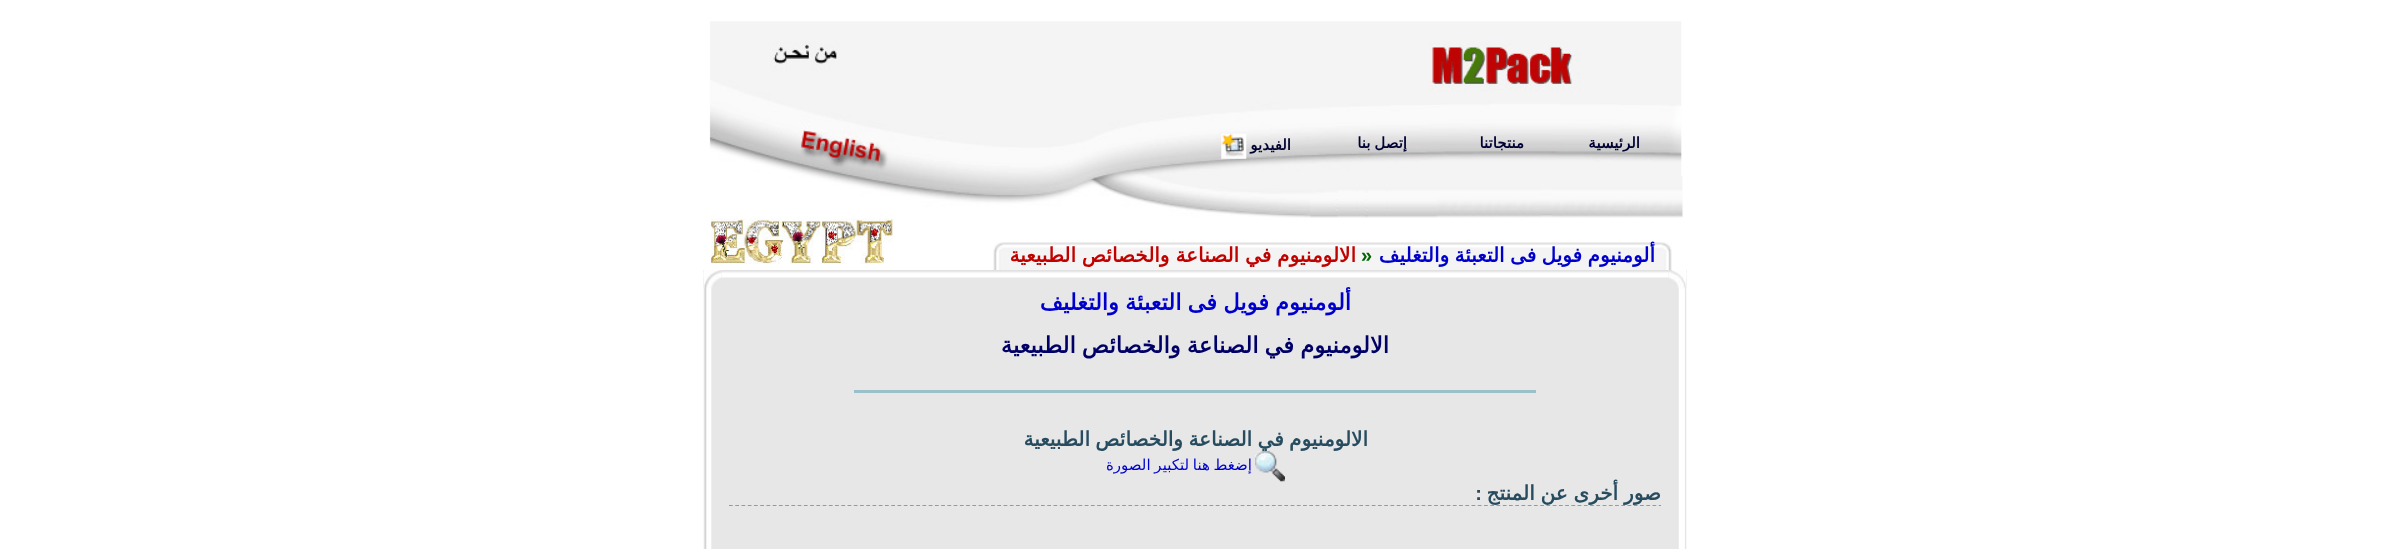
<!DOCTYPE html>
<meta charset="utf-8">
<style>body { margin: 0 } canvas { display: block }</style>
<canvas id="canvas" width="2390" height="549"></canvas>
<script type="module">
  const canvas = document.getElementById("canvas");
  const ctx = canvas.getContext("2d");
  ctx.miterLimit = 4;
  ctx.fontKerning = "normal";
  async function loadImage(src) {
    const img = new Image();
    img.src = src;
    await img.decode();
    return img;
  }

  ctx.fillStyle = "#ffffff";
  ctx.fillRect(0, 0, 2390, 549);
  ctx.drawImage(await loadImage("img1.png"), 709, 21, 974, 197);
  ctx.direction = "rtl";
  ctx.font = "bold 15px DejaVu Sans";
  ctx.fillStyle = "#000033";
  ctx.fillText("الرئيسية", 1640, 148);
  ctx.fillText("منتجاتنا", 1524, 148);
  ctx.wordSpacing = "-1px";
  ctx.fillText("إتصل بنا", 1407, 148);
  ctx.wordSpacing = "0px";
  ctx.fillText("الفيديو", 1291, 150);
  ctx.drawImage(await loadImage("img2.png"), 1221, 133, 26, 26);
  ctx.drawImage(await loadImage("img3.png"), 711, 218, 183, 46);
  ctx.drawImage(await loadImage("img4.png"), 1655, 242, 17, 28);
  ctx.drawImage(await loadImage("img5.png"), 1010, 242, 645, 28);
  ctx.wordSpacing = "-1px";
  ctx.font = "bold 20px DejaVu Sans";
  ctx.fillStyle = "#0000cc";
  ctx.fillText("ألومنيوم فويل فى التعبئة والتغليف", 1655, 262);
  ctx.wordSpacing = "0px";
  ctx.direction = "ltr";
  ctx.font = "bold 20px Liberation Sans";
  ctx.fillStyle = "#006600";
  ctx.fillText("»", 1361, 262);
  ctx.wordSpacing = "-0.5px";
  ctx.direction = "rtl";
  ctx.font = "bold 20px DejaVu Sans";
  ctx.fillStyle = "#bf0200";
  ctx.fillText("الالومنيوم في الصناعة والخصائص الطبيعية", 1356, 262);
  ctx.drawImage(await loadImage("img6.png"), 993, 242, 17, 28);
  ctx.drawImage(await loadImage("img7.png"), 703, 270, 984, 18);
  ctx.drawImage(await loadImage("img8.png"), 703, 270, 19, 279);
  ctx.drawImage(await loadImage("img9.png"), 1668, 270, 19, 279);
  ctx.drawImage(await loadImage("img10.png"), 704, 270, 17, 18);
  ctx.drawImage(await loadImage("img11.png"), 1669, 270, 17, 19);
  ctx.fillStyle = "#e7e7e7";
  ctx.fillRect(721, 287, 948, 262);
  ctx.wordSpacing = "-1px";
  ctx.font = "bold 22.5px DejaVu Sans";
  ctx.fillStyle = "#0000cc";
  ctx.fillText("ألومنيوم فويل فى التعبئة والتغليف", 1351, 310);
  ctx.fillStyle = "#000066";
  ctx.fillText("الالومنيوم في الصناعة والخصائص الطبيعية", 1389, 353);
  ctx.fillStyle = "#9ac1c9";
  ctx.fillRect(854, 390, 682, 3);
  ctx.font = "bold 20px DejaVu Sans";
  ctx.fillStyle = "#274c5f";
  ctx.fillText("الالومنيوم في الصناعة والخصائص الطبيعية", 1368, 446);
  ctx.drawImage(await loadImage("img12.png"), 1255, 451, 30, 31);
  ctx.font = "15px DejaVu Sans";
  ctx.fillStyle = "#0000cc";
  ctx.fillText("إضغط هنا لتكبير الصورة", 1252, 470);
  ctx.beginPath();
  ctx.moveTo(729, 505.5);
  ctx.lineTo(1661, 505.5);
  ctx.strokeStyle = "#999999";
  ctx.lineWidth = 1.2;
  ctx.setLineDash([3.75, 2.49]);
  ctx.stroke();
  ctx.wordSpacing = "-0.5px";
  ctx.font = "bold 20px DejaVu Sans";
  ctx.fillStyle = "#274c5f";
  ctx.fillText("صور أخرى عن المنتج", 1661, 500);
  ctx.wordSpacing = "0px";
  ctx.font = "bold 20px Liberation Sans";
  ctx.fillText(":", 1482, 500);
</script>
